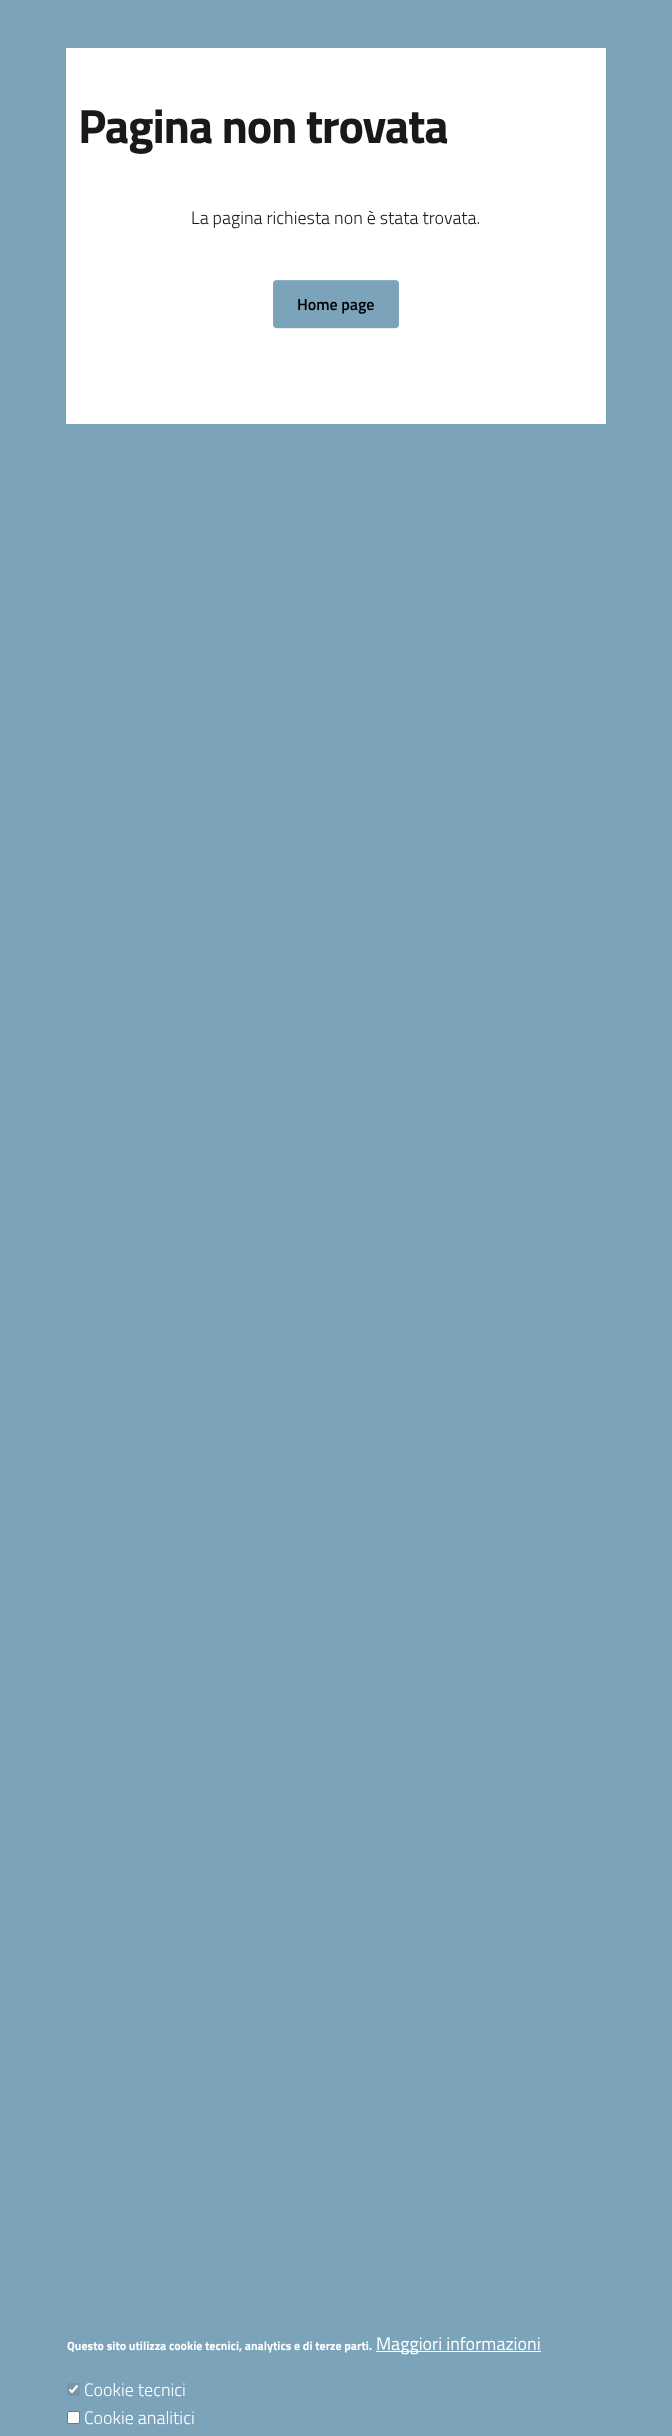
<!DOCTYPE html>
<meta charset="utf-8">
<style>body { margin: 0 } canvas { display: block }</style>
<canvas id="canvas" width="672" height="2436"></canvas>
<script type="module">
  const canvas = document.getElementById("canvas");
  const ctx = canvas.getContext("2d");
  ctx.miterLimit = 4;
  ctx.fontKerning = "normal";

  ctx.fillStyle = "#7ba3ba";
  ctx.fillRect(0, 0, 672, 2436);
  ctx.fillStyle = "#ffffff";
  ctx.fillRect(66, 48, 540, 376);
  ctx.letterSpacing = "-1.25px";
  ctx.font = "bold 48px Titillium Web";
  ctx.fillStyle = "#19191a";
  ctx.fillText("Pagina non trovata", 78, 143);
  ctx.letterSpacing = "0px";
  ctx.font = "300 18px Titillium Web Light";
  ctx.fillText("La pagina richiesta non è stata trovata.", 191, 224);
  ctx.fillStyle = "rgba(0, 0, 0, 0.07)";
  ctx.filter = "blur(0.5px)";
  ctx.beginPath();
  ctx.roundRect(273, 281, 126, 48, 4);
  ctx.fill();
  ctx.filter = "none";
  ctx.fillStyle = "#7ba3ba";
  ctx.beginPath();
  ctx.roundRect(273, 280, 126, 48, 4);
  ctx.fill();
  ctx.fillStyle = "rgba(255, 255, 255, 0.15)";
  ctx.beginPath();
  ctx.moveTo(277, 281);
  ctx.lineTo(395, 281);
  ctx.bezierCurveTo(397, 281, 399, 283, 399, 285);
  ctx.bezierCurveTo(399, 275, 378, 280, 375, 280);
  ctx.lineTo(297, 280);
  ctx.bezierCurveTo(294, 280, 273, 275, 273, 285);
  ctx.bezierCurveTo(273, 283, 275, 281, 277, 281);
  ctx.closePath();
  ctx.fill();
  ctx.font = "600 16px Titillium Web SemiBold";
  ctx.fillStyle = "#000000";
  ctx.fillText("Home page", 297, 310);
  ctx.font = "bold 12px Titillium Web";
  ctx.fillStyle = "#ffffff";
  ctx.fillText("Questo sito utilizza cookie tecnici, analytics e di terze parti.", 67, 2350);
  ctx.fillRect(376, 2351, 165, 1);
  ctx.font = "18px Titillium Web";
  ctx.fillText("Maggiori informazioni", 376, 2350);
  ctx.fillStyle = "#7a96a6";
  ctx.beginPath();
  ctx.roundRect(67, 2383, 13, 13, 2);
  ctx.fill();
  ctx.beginPath();
  ctx.moveTo(69.5, 2389.5);
  ctx.lineTo(72, 2392);
  ctx.lineTo(77.5, 2385.5);
  ctx.strokeStyle = "#ffffff";
  ctx.lineWidth = 2.1;
  ctx.stroke();
  ctx.font = "300 18px Titillium Web Light";
  ctx.fillStyle = "#ffffff";
  ctx.fillText("Cookie tecnici", 84, 2396);
  ctx.beginPath();
  ctx.roundRect(67.5, 2411.5, 12, 12, 1.5);
  ctx.fill();
  ctx.strokeStyle = "#767676";
  ctx.lineWidth = 1;
  ctx.stroke();
  ctx.fillText("Cookie analitici", 84, 2424);
</script>
